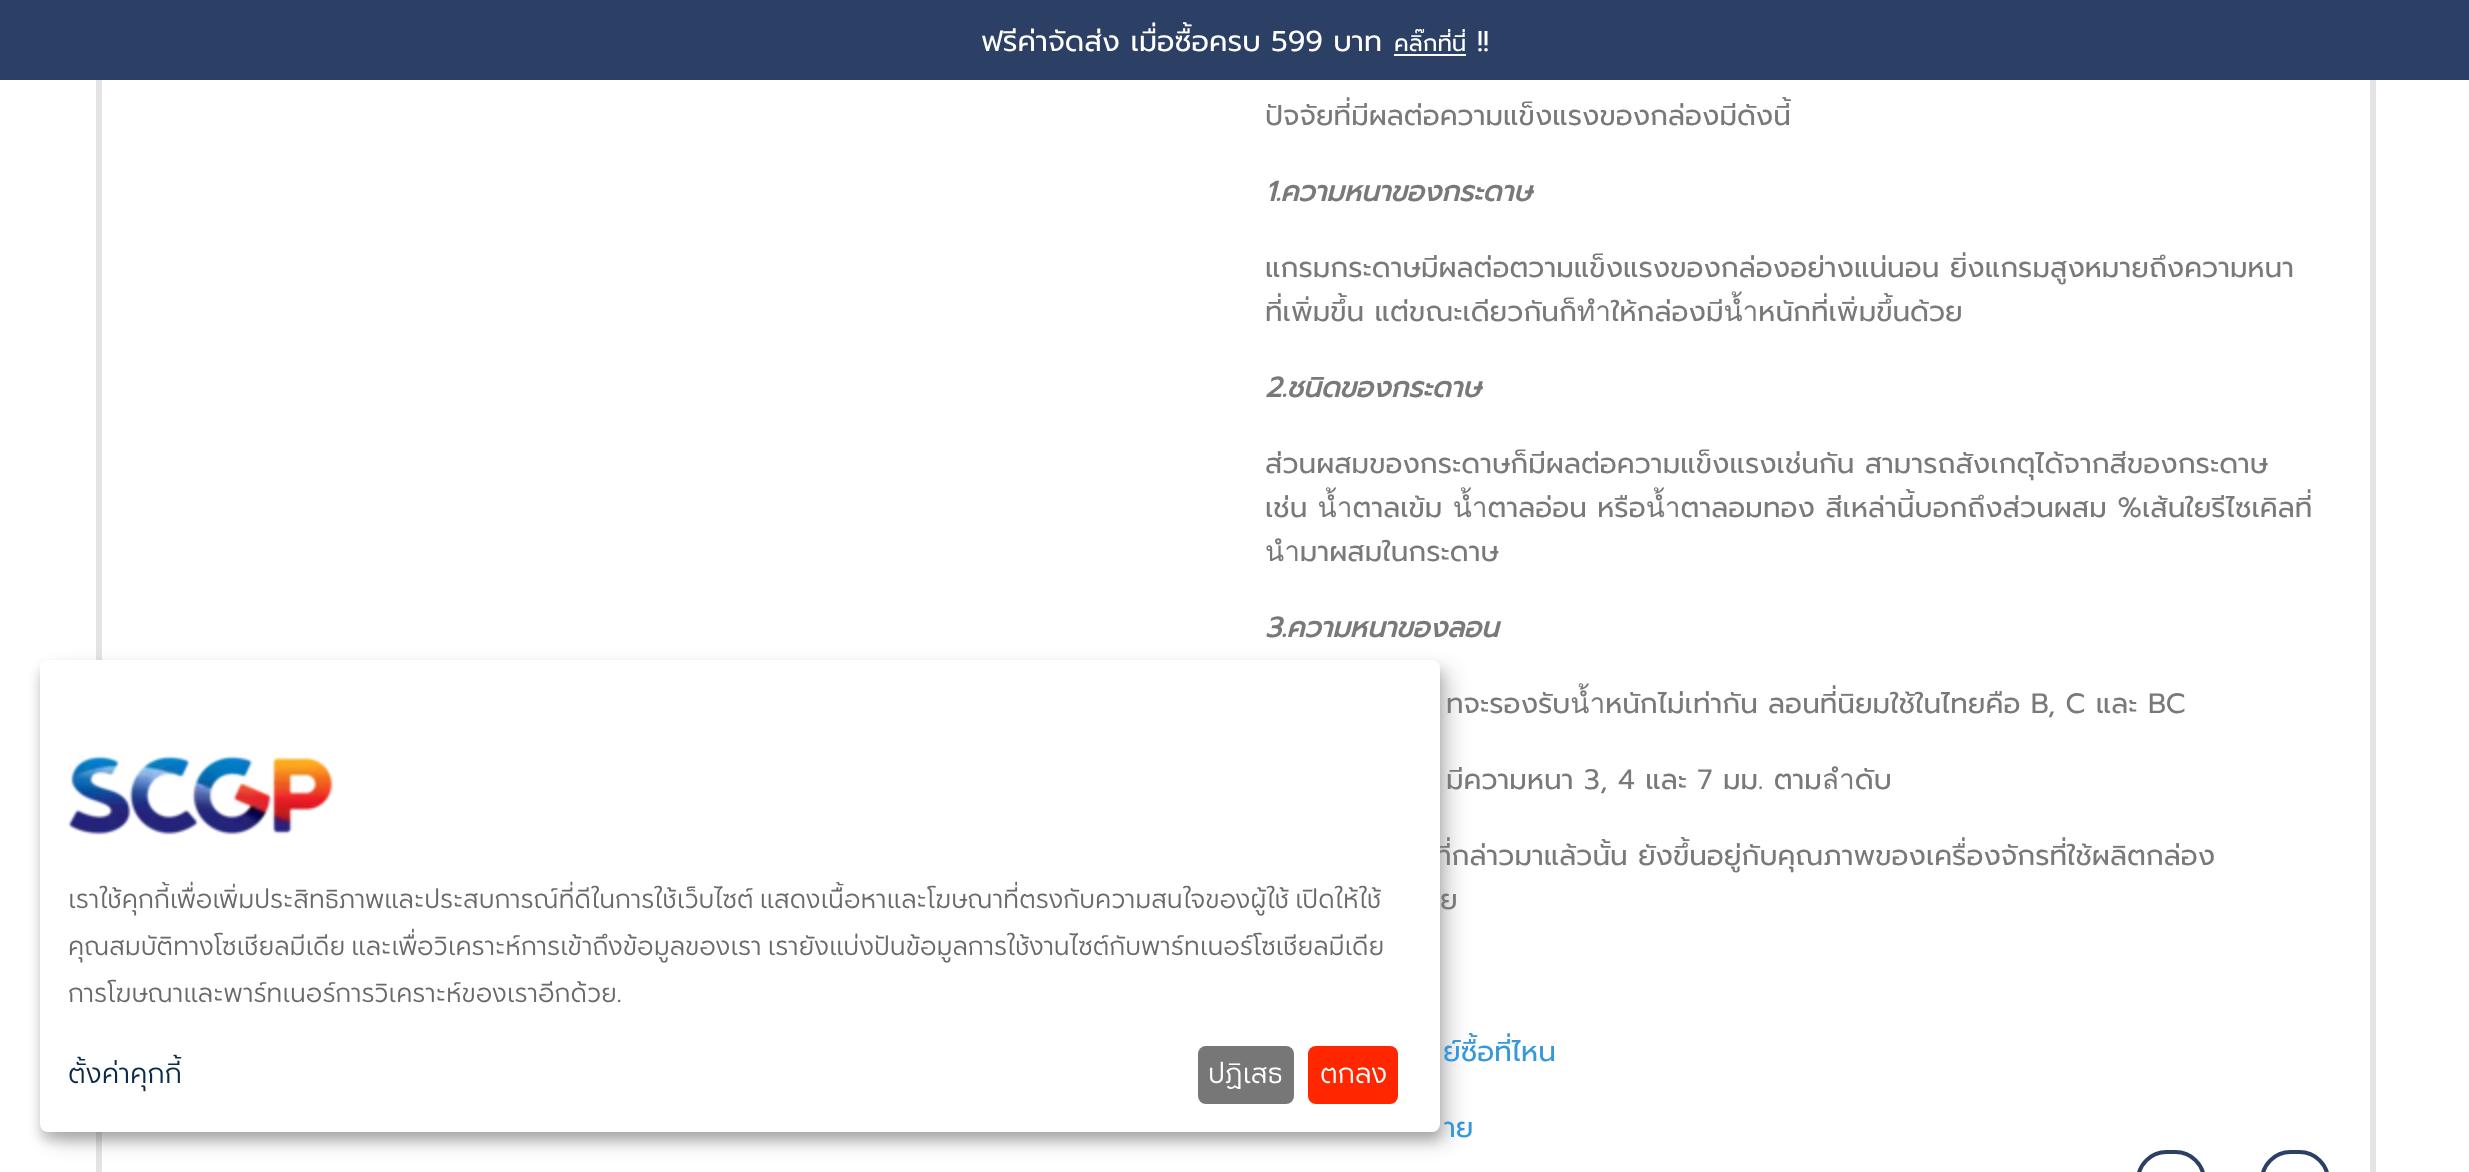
<!DOCTYPE html>
<meta charset="utf-8">
<style>body { margin: 0 } canvas { display: block }</style>
<canvas id="canvas" width="2469" height="1172"></canvas>
<script type="module">
  const canvas = document.getElementById("canvas");
  const ctx = canvas.getContext("2d");
  ctx.miterLimit = 4;
  ctx.fontKerning = "normal";
  async function loadImage(src) {
    const img = new Image();
    img.src = src;
    await img.decode();
    return img;
  }

  ctx.fillStyle = "#ffffff";
  ctx.fillRect(0, 0, 2469, 1172);
  ctx.strokeStyle = "#e4e4e4";
  ctx.lineWidth = 6;
  ctx.strokeRect(99, -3, 2274, 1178);
  ctx.fillStyle = "rgba(0, 0, 0, 0.19)";
  ctx.filter = "blur(10px)";
  ctx.beginPath();
  ctx.roundRect(50, 670, 1400, 472, 8);
  ctx.fill();
  ctx.filter = "none";
  ctx.fillStyle = "rgba(0, 0, 0, 0.2)";
  ctx.filter = "blur(6px)";
  ctx.beginPath();
  ctx.roundRect(40, 668, 1400, 472, 8);
  ctx.fill();
  ctx.filter = "none";
  ctx.font = "28px Prompt";
  ctx.fillStyle = "#797979";
  ctx.fillText("มีความหนา 3, 4 และ 7 มม. ตามลำดับ", 1446, 789);
  ctx.fillText("ที่กล่าวมาแล้วนั้น ยังขึ้นอยู่กับคุณภาพของเครื่องจักรที่ใช้ผลิตกล่อง", 1434, 865);
  ctx.fillStyle = "#3498db";
  ctx.fillText("ย์ซื้อที่ไหน", 1443, 1061);
  ctx.fillStyle = "#ffffff";
  ctx.beginPath();
  ctx.roundRect(40, 660, 1400, 472, 8);
  ctx.fill();
  ctx.drawImage(await loadImage("img1.png"), 68, 755, 265, 80);
  ctx.font = "26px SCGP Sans";
  ctx.fillStyle = "#696969";
  ctx.fillText("เราใช้คุกกี้เพื่อเพิ่มประสิทธิภาพและประสบการณ์ที่ดีในการใช้เว็บไซต์ แสดงเนื้อหาและโฆษณาที่ตรงกับความสนใจของผู้ใช้ เปิดให้ใช้", 68, 908);
  ctx.fillText("คุณสมบัติทางโซเชียลมีเดีย และเพื่อวิเคราะห์การเข้าถึงข้อมูลของเรา เรายังแบ่งปันข้อมูลการใช้งานไซต์กับพาร์ทเนอร์โซเชียลมีเดีย", 68, 955);
  ctx.fillText("การโฆษณาและพาร์ทเนอร์การวิเคราะห์ของเราอีกด้วย.", 68, 1002);
  ctx.font = "28px SCGP Sans";
  ctx.fillStyle = "#092a48";
  ctx.fillText("ตั้งค่าคุกกี้", 68, 1083);
  ctx.fillStyle = "#777777";
  ctx.beginPath();
  ctx.roundRect(1198, 1046, 96, 58, 8);
  ctx.fill();
  ctx.fillStyle = "#ffffff";
  ctx.fillText("ปฏิเสธ", 1208, 1083);
  ctx.fillStyle = "#ff2600";
  ctx.beginPath();
  ctx.roundRect(1308, 1046, 90, 58, 8);
  ctx.fill();
  ctx.fillStyle = "#ffffff";
  ctx.fillText("ตกลง", 1320, 1083);
  ctx.fillStyle = "#2c3f64";
  ctx.fillRect(0, 0, 2469, 80);
  ctx.font = "28.75px Prompt";
  ctx.fillStyle = "#ffffff";
  ctx.fillText("ฟรีค่าจัดส่ง เมื่อซื้อครบ 599 บาท", 981, 51);
  ctx.font = "23px Prompt";
  ctx.fillText("คลิ๊กที่นี่", 1394, 51);
  ctx.fillRect(1394, 54, 72, 2);
  ctx.font = "28.75px Prompt";
  ctx.fillText("!!", 1477, 51);
  ctx.font = "28px Prompt";
  ctx.fillStyle = "#797979";
  ctx.fillText("ปัจจัยที่มีผลต่อความแข็งแรงของกล่องมีดังนี้", 1265, 125);
  ctx.font = "italic bold 28px Prompt";
  ctx.fillText("1.ความหนาของกระดาษ", 1265, 201);
  ctx.font = "28px Prompt";
  ctx.fillText("แกรมกระดาษมีผลต่อตวามแข็งแรงของกล่องอย่างแน่นอน ยิ่งแกรมสูงหมายถึงความหนา", 1265, 277);
  ctx.fillText("ที่เพิ่มขึ้น แต่ขณะเดียวกันก็ทำให้กล่องมีน้ำหนักที่เพิ่มขึ้นด้วย", 1265, 321);
  ctx.font = "italic bold 28px Prompt";
  ctx.fillText("2.ชนิดของกระดาษ", 1265, 397);
  ctx.font = "28px Prompt";
  ctx.fillText("ส่วนผสมของกระดาษก็มีผลต่อความแข็งแรงเช่นกัน สามารถสังเกตุได้จากสีของกระดาษ", 1265, 473);
  ctx.fillText("เช่น น้ำตาลเข้ม น้ำตาลอ่อน หรือน้ำตาลอมทอง สีเหล่านี้บอกถึงส่วนผสม %เส้นใยรีไซเคิลที่", 1265, 517);
  ctx.fillText("นำมาผสมในกระดาษ", 1265, 561);
  ctx.font = "italic bold 28px Prompt";
  ctx.fillText("3.ความหนาของลอน", 1265, 637);
  ctx.font = "28px Prompt";
  ctx.fillText("ทจะรองรับน้ำหนักไม่เท่ากัน ลอนที่นิยมใช้ในไทยคือ B, C และ BC", 1446, 713);
  ctx.fillText("ย", 1440, 909);
  ctx.fillStyle = "#3498db";
  ctx.fillText("าย", 1444, 1137);
  ctx.beginPath();
  ctx.roundRect(2138, 1152, 66, 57, 33);
  ctx.strokeStyle = "#2c3f64";
  ctx.lineWidth = 4;
  ctx.stroke();
  ctx.beginPath();
  ctx.roundRect(2262, 1152, 66, 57, 33);
  ctx.stroke();
</script>
